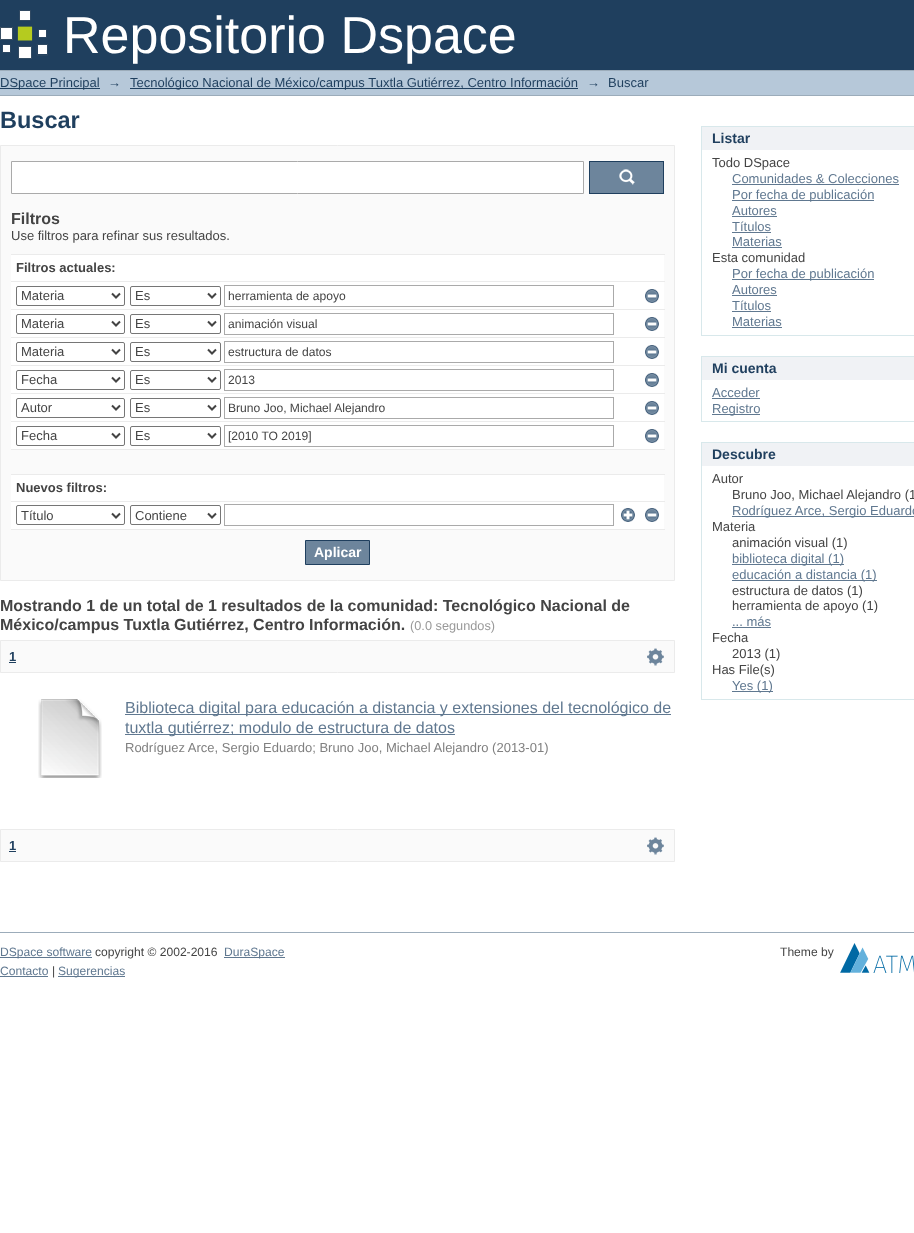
<!DOCTYPE html>
<meta charset="utf-8">
<style>body { margin: 0 } canvas { display: block }</style>
<canvas id="canvas" width="914" height="1233"></canvas>
<script type="module">
  const canvas = document.getElementById("canvas");
  const ctx = canvas.getContext("2d");
  ctx.miterLimit = 4;
  ctx.fontKerning = "normal";
  async function loadImage(src) {
    const img = new Image();
    img.src = src;
    await img.decode();
    return img;
  }

  ctx.fillStyle = "#ffffff";
  ctx.fillRect(0, 0, 914, 1233);
  ctx.fillStyle = "#1f3f5e";
  ctx.fillRect(0, 0, 914, 70);
  ctx.drawImage(await loadImage("img1.png"), 0, 10, 48, 49);
  ctx.font = "52px Liberation Sans";
  ctx.fillStyle = "#ffffff";
  ctx.fillText("Repositorio Dspace", 63, 53);
  ctx.fillStyle = "#b6c8d9";
  ctx.fillRect(0, 71, 914, 24);
  ctx.fillStyle = "#9cacba";
  ctx.fillRect(0, 70, 914, 1);
  ctx.fillRect(0, 95, 914, 1);
  ctx.fillStyle = "#1f3f5e";
  ctx.fillRect(0, 88, 100, 1);
  ctx.font = "13px Liberation Sans";
  ctx.fillText("DSpace Principal", 0, 87);
  ctx.fillText("→", 108, 87);
  ctx.fillRect(130, 88, 448, 1);
  ctx.fillText("Tecnológico Nacional de México/campus Tuxtla Gutiérrez, Centro Información", 130, 87);
  ctx.fillText("→", 587, 87);
  ctx.fillText("Buscar", 608, 87);
  ctx.font = "bold 23.5px Liberation Sans";
  ctx.fillText("Buscar", 0, 128);
  ctx.fillStyle = "#fafafa";
  ctx.beginPath();
  ctx.rect(0.5, 145.5, 674, 435);
  ctx.fill();
  ctx.strokeStyle = "#ebebeb";
  ctx.stroke();
  ctx.fillStyle = "#ffffff";
  ctx.beginPath();
  ctx.rect(11.5, 161.5, 572, 32);
  ctx.fill();
  ctx.strokeStyle = "#aaaaaa";
  ctx.stroke();
  ctx.fillStyle = "#6d859c";
  ctx.fillRect(590, 162, 73, 31);
  ctx.drawImage(await loadImage("img2.png"), 619, 169, 16, 16);
  ctx.strokeStyle = "#1f3f5e";
  ctx.strokeRect(589.5, 161.5, 74, 32);
  ctx.font = "bold 16px Liberation Sans";
  ctx.fillStyle = "#444444";
  ctx.fillText("Filtros", 11, 224);
  ctx.font = "13px Liberation Sans";
  ctx.fillText("Use filtros para refinar sus resultados.", 11, 240);
  ctx.fillStyle = "#ffffff";
  ctx.fillRect(11, 255, 653, 274);
  ctx.fillStyle = "#ebebeb";
  ctx.fillRect(11, 254, 654, 1);
  ctx.font = "bold 13px Liberation Sans";
  ctx.fillStyle = "#444444";
  ctx.fillText("Filtros actuales:", 16, 272);
  ctx.fillStyle = "#ebebeb";
  ctx.fillRect(11, 281, 654, 1);
  ctx.beginPath();
  ctx.roundRect(16.5, 286.5, 108, 19, 1.5);
  ctx.strokeStyle = "#767676";
  ctx.stroke();
  ctx.beginPath();
  ctx.moveTo(112, 293.5);
  ctx.lineTo(116, 297.5);
  ctx.lineTo(120, 293.5);
  ctx.strokeStyle = "#444444";
  ctx.lineWidth = 2;
  ctx.stroke();
  ctx.font = "13px Liberation Sans";
  ctx.fillStyle = "#444444";
  ctx.fillText("Materia", 21, 300);
  ctx.beginPath();
  ctx.roundRect(130.5, 286.5, 90, 19, 1.5);
  ctx.strokeStyle = "#767676";
  ctx.lineWidth = 1;
  ctx.stroke();
  ctx.beginPath();
  ctx.moveTo(208, 293.5);
  ctx.lineTo(212, 297.5);
  ctx.lineTo(216, 293.5);
  ctx.strokeStyle = "#444444";
  ctx.lineWidth = 2;
  ctx.stroke();
  ctx.fillText("Es", 135, 300);
  ctx.strokeStyle = "#aaaaaa";
  ctx.lineWidth = 1;
  ctx.strokeRect(224.5, 285.5, 389, 21);
  ctx.font = "12.1px Liberation Sans";
  ctx.fillText("herramienta de apoyo", 228, 300);
  ctx.drawImage(await loadImage("img3.png"), 645, 289, 14, 14);
  ctx.fillStyle = "#ebebeb";
  ctx.fillRect(11, 309, 654, 1);
  ctx.beginPath();
  ctx.roundRect(16.5, 314.5, 108, 19, 1.5);
  ctx.strokeStyle = "#767676";
  ctx.stroke();
  ctx.beginPath();
  ctx.moveTo(112, 321.5);
  ctx.lineTo(116, 325.5);
  ctx.lineTo(120, 321.5);
  ctx.strokeStyle = "#444444";
  ctx.lineWidth = 2;
  ctx.stroke();
  ctx.font = "13px Liberation Sans";
  ctx.fillStyle = "#444444";
  ctx.fillText("Materia", 21, 328);
  ctx.beginPath();
  ctx.roundRect(130.5, 314.5, 90, 19, 1.5);
  ctx.strokeStyle = "#767676";
  ctx.lineWidth = 1;
  ctx.stroke();
  ctx.beginPath();
  ctx.moveTo(208, 321.5);
  ctx.lineTo(212, 325.5);
  ctx.lineTo(216, 321.5);
  ctx.strokeStyle = "#444444";
  ctx.lineWidth = 2;
  ctx.stroke();
  ctx.fillText("Es", 135, 328);
  ctx.strokeStyle = "#aaaaaa";
  ctx.lineWidth = 1;
  ctx.strokeRect(224.5, 313.5, 389, 21);
  ctx.font = "12.1px Liberation Sans";
  ctx.fillText("animación visual", 228, 328);
  ctx.drawImage(await loadImage("img3.png"), 645, 317, 14, 14);
  ctx.fillStyle = "#ebebeb";
  ctx.fillRect(11, 337, 654, 1);
  ctx.beginPath();
  ctx.roundRect(16.5, 342.5, 108, 19, 1.5);
  ctx.strokeStyle = "#767676";
  ctx.stroke();
  ctx.beginPath();
  ctx.moveTo(112, 349.5);
  ctx.lineTo(116, 353.5);
  ctx.lineTo(120, 349.5);
  ctx.strokeStyle = "#444444";
  ctx.lineWidth = 2;
  ctx.stroke();
  ctx.font = "13px Liberation Sans";
  ctx.fillStyle = "#444444";
  ctx.fillText("Materia", 21, 356);
  ctx.beginPath();
  ctx.roundRect(130.5, 342.5, 90, 19, 1.5);
  ctx.strokeStyle = "#767676";
  ctx.lineWidth = 1;
  ctx.stroke();
  ctx.beginPath();
  ctx.moveTo(208, 349.5);
  ctx.lineTo(212, 353.5);
  ctx.lineTo(216, 349.5);
  ctx.strokeStyle = "#444444";
  ctx.lineWidth = 2;
  ctx.stroke();
  ctx.fillText("Es", 135, 356);
  ctx.strokeStyle = "#aaaaaa";
  ctx.lineWidth = 1;
  ctx.strokeRect(224.5, 341.5, 389, 21);
  ctx.font = "12.1px Liberation Sans";
  ctx.fillText("estructura de datos", 228, 356);
  ctx.drawImage(await loadImage("img3.png"), 645, 345, 14, 14);
  ctx.fillStyle = "#ebebeb";
  ctx.fillRect(11, 365, 654, 1);
  ctx.beginPath();
  ctx.roundRect(16.5, 370.5, 108, 19, 1.5);
  ctx.strokeStyle = "#767676";
  ctx.stroke();
  ctx.beginPath();
  ctx.moveTo(112, 377.5);
  ctx.lineTo(116, 381.5);
  ctx.lineTo(120, 377.5);
  ctx.strokeStyle = "#444444";
  ctx.lineWidth = 2;
  ctx.stroke();
  ctx.font = "13px Liberation Sans";
  ctx.fillStyle = "#444444";
  ctx.fillText("Fecha", 21, 384);
  ctx.beginPath();
  ctx.roundRect(130.5, 370.5, 90, 19, 1.5);
  ctx.strokeStyle = "#767676";
  ctx.lineWidth = 1;
  ctx.stroke();
  ctx.beginPath();
  ctx.moveTo(208, 377.5);
  ctx.lineTo(212, 381.5);
  ctx.lineTo(216, 377.5);
  ctx.strokeStyle = "#444444";
  ctx.lineWidth = 2;
  ctx.stroke();
  ctx.fillText("Es", 135, 384);
  ctx.strokeStyle = "#aaaaaa";
  ctx.lineWidth = 1;
  ctx.strokeRect(224.5, 369.5, 389, 21);
  ctx.font = "12.1px Liberation Sans";
  ctx.fillText("2013", 228, 384);
  ctx.drawImage(await loadImage("img3.png"), 645, 373, 14, 14);
  ctx.fillStyle = "#ebebeb";
  ctx.fillRect(11, 393, 654, 1);
  ctx.beginPath();
  ctx.roundRect(16.5, 398.5, 108, 19, 1.5);
  ctx.strokeStyle = "#767676";
  ctx.stroke();
  ctx.beginPath();
  ctx.moveTo(112, 405.5);
  ctx.lineTo(116, 409.5);
  ctx.lineTo(120, 405.5);
  ctx.strokeStyle = "#444444";
  ctx.lineWidth = 2;
  ctx.stroke();
  ctx.font = "13px Liberation Sans";
  ctx.fillStyle = "#444444";
  ctx.fillText("Autor", 21, 412);
  ctx.beginPath();
  ctx.roundRect(130.5, 398.5, 90, 19, 1.5);
  ctx.strokeStyle = "#767676";
  ctx.lineWidth = 1;
  ctx.stroke();
  ctx.beginPath();
  ctx.moveTo(208, 405.5);
  ctx.lineTo(212, 409.5);
  ctx.lineTo(216, 405.5);
  ctx.strokeStyle = "#444444";
  ctx.lineWidth = 2;
  ctx.stroke();
  ctx.fillText("Es", 135, 412);
  ctx.strokeStyle = "#aaaaaa";
  ctx.lineWidth = 1;
  ctx.strokeRect(224.5, 397.5, 389, 21);
  ctx.font = "12.1px Liberation Sans";
  ctx.fillText("Bruno Joo, Michael Alejandro", 228, 412);
  ctx.drawImage(await loadImage("img3.png"), 645, 401, 14, 14);
  ctx.fillStyle = "#ebebeb";
  ctx.fillRect(11, 421, 654, 1);
  ctx.beginPath();
  ctx.roundRect(16.5, 426.5, 108, 19, 1.5);
  ctx.strokeStyle = "#767676";
  ctx.stroke();
  ctx.beginPath();
  ctx.moveTo(112, 433.5);
  ctx.lineTo(116, 437.5);
  ctx.lineTo(120, 433.5);
  ctx.strokeStyle = "#444444";
  ctx.lineWidth = 2;
  ctx.stroke();
  ctx.font = "13px Liberation Sans";
  ctx.fillStyle = "#444444";
  ctx.fillText("Fecha", 21, 440);
  ctx.beginPath();
  ctx.roundRect(130.5, 426.5, 90, 19, 1.5);
  ctx.strokeStyle = "#767676";
  ctx.lineWidth = 1;
  ctx.stroke();
  ctx.beginPath();
  ctx.moveTo(208, 433.5);
  ctx.lineTo(212, 437.5);
  ctx.lineTo(216, 433.5);
  ctx.strokeStyle = "#444444";
  ctx.lineWidth = 2;
  ctx.stroke();
  ctx.fillText("Es", 135, 440);
  ctx.strokeStyle = "#aaaaaa";
  ctx.lineWidth = 1;
  ctx.strokeRect(224.5, 425.5, 389, 21);
  ctx.font = "12.1px Liberation Sans";
  ctx.fillText("[2010 TO 2019]", 228, 440);
  ctx.drawImage(await loadImage("img3.png"), 645, 429, 14, 14);
  ctx.fillStyle = "#fafafa";
  ctx.fillRect(11, 450, 653, 24);
  ctx.fillStyle = "#ebebeb";
  ctx.fillRect(11, 449, 654, 1);
  ctx.fillRect(11, 474, 654, 1);
  ctx.font = "bold 13px Liberation Sans";
  ctx.fillStyle = "#444444";
  ctx.fillText("Nuevos filtros:", 16, 492);
  ctx.fillStyle = "#ebebeb";
  ctx.fillRect(11, 501, 654, 1);
  ctx.beginPath();
  ctx.roundRect(16.5, 505.5, 108, 19, 1.5);
  ctx.strokeStyle = "#767676";
  ctx.stroke();
  ctx.beginPath();
  ctx.moveTo(112, 513.5);
  ctx.lineTo(116, 517.5);
  ctx.lineTo(120, 513.5);
  ctx.strokeStyle = "#444444";
  ctx.lineWidth = 2;
  ctx.stroke();
  ctx.font = "13px Liberation Sans";
  ctx.fillStyle = "#444444";
  ctx.fillText("Título", 21, 520);
  ctx.beginPath();
  ctx.roundRect(130.5, 505.5, 90, 19, 1.5);
  ctx.strokeStyle = "#767676";
  ctx.lineWidth = 1;
  ctx.stroke();
  ctx.beginPath();
  ctx.moveTo(208, 513.5);
  ctx.lineTo(212, 517.5);
  ctx.lineTo(216, 513.5);
  ctx.strokeStyle = "#444444";
  ctx.lineWidth = 2;
  ctx.stroke();
  ctx.fillText("Contiene", 135, 520);
  ctx.strokeStyle = "#aaaaaa";
  ctx.lineWidth = 1;
  ctx.strokeRect(224.5, 504.5, 389, 21);
  ctx.drawImage(await loadImage("img4.png"), 621, 508, 14, 14);
  ctx.drawImage(await loadImage("img3.png"), 645, 508, 14, 14);
  ctx.fillStyle = "#ebebeb";
  ctx.fillRect(11, 529, 654, 1);
  ctx.fillStyle = "#6d859c";
  ctx.beginPath();
  ctx.rect(305.5, 540.5, 64, 24);
  ctx.fill();
  ctx.strokeStyle = "#1f3f5e";
  ctx.stroke();
  ctx.font = "bold 14px Liberation Sans";
  ctx.fillStyle = "#ffffff";
  ctx.fillText("Aplicar", 314, 557);
  ctx.font = "bold 16px Liberation Sans";
  ctx.fillStyle = "#444444";
  ctx.fillText("Mostrando 1 de un total de 1 resultados de la comunidad: Tecnológico Nacional de", 0, 611);
  ctx.fillText("México/campus Tuxtla Gutiérrez, Centro Información.", 0, 630);
  ctx.font = "12.75px Liberation Sans";
  ctx.fillStyle = "#999999";
  ctx.fillText("(0.0 segundos)", 410, 630);
  ctx.fillStyle = "#fafafa";
  ctx.beginPath();
  ctx.rect(0.5, 640.5, 674, 32);
  ctx.fill();
  ctx.strokeStyle = "#ebebeb";
  ctx.stroke();
  ctx.font = "bold 13px Liberation Sans";
  ctx.fillStyle = "#1f3f5e";
  ctx.fillText("1", 9, 661);
  ctx.fillRect(9, 662, 7, 1);
  ctx.drawImage(await loadImage("img5.png"), 647, 648, 17, 18);
  ctx.drawImage(await loadImage("img6.png"), 38, 699, 64, 79);
  ctx.fillStyle = "#607890";
  ctx.fillRect(125, 714, 546, 1);
  ctx.font = "16px Liberation Sans";
  ctx.fillText("Biblioteca digital para educación a distancia y extensiones del tecnológico de", 125, 713);
  ctx.fillRect(125, 734, 330, 1);
  ctx.fillText("tuxtla gutiérrez; modulo de estructura de datos", 125, 733);
  ctx.font = "13px Liberation Sans";
  ctx.fillStyle = "#808080";
  ctx.fillText("Rodríguez Arce, Sergio Eduardo; Bruno Joo, Michael Alejandro (2013-01)", 125, 752);
  ctx.fillStyle = "#fafafa";
  ctx.beginPath();
  ctx.rect(0.5, 829.5, 674, 32);
  ctx.fill();
  ctx.stroke();
  ctx.font = "bold 13px Liberation Sans";
  ctx.fillStyle = "#1f3f5e";
  ctx.fillText("1", 9, 850);
  ctx.fillRect(9, 851, 7, 1);
  ctx.drawImage(await loadImage("img5.png"), 647, 837, 17, 18);
  ctx.fillStyle = "#f0f2f5";
  ctx.fillRect(702, 127, 212, 23);
  ctx.fillStyle = "#d8e8eb";
  ctx.fillRect(701, 126, 213, 1);
  ctx.fillRect(701, 126, 1, 24);
  ctx.font = "bold 14px Liberation Sans";
  ctx.fillStyle = "#1f3f5e";
  ctx.fillText("Listar", 712, 143);
  ctx.fillStyle = "#d8e8eb";
  ctx.fillRect(701, 335, 213, 1);
  ctx.fillRect(701, 150, 1, 186);
  ctx.font = "13px Liberation Sans";
  ctx.fillStyle = "#444444";
  ctx.fillText("Todo DSpace", 712, 167);
  ctx.fillStyle = "#607890";
  ctx.fillText("Comunidades & Colecciones", 732, 183);
  ctx.fillRect(732, 184, 167, 1);
  ctx.fillRect(732, 200, 142, 1);
  ctx.fillText("Por fecha de publicación", 732, 199);
  ctx.fillText("Autores", 732, 215);
  ctx.fillRect(732, 216, 45, 1);
  ctx.fillText("Títulos", 732, 231);
  ctx.fillRect(732, 232, 39, 1);
  ctx.fillText("Materias", 732, 246);
  ctx.fillRect(732, 247, 50, 1);
  ctx.fillStyle = "#444444";
  ctx.fillText("Esta comunidad", 712, 262);
  ctx.fillStyle = "#607890";
  ctx.fillRect(732, 279, 142, 1);
  ctx.fillText("Por fecha de publicación", 732, 278);
  ctx.fillText("Autores", 732, 294);
  ctx.fillRect(732, 295, 45, 1);
  ctx.fillText("Títulos", 732, 310);
  ctx.fillRect(732, 311, 39, 1);
  ctx.fillText("Materias", 732, 326);
  ctx.fillRect(732, 327, 50, 1);
  ctx.fillStyle = "#f0f2f5";
  ctx.fillRect(702, 357, 212, 23);
  ctx.fillStyle = "#d8e8eb";
  ctx.fillRect(701, 356, 213, 1);
  ctx.fillRect(701, 356, 1, 24);
  ctx.font = "bold 14px Liberation Sans";
  ctx.fillStyle = "#1f3f5e";
  ctx.fillText("Mi cuenta", 712, 373);
  ctx.fillStyle = "#d8e8eb";
  ctx.fillRect(701, 421, 213, 1);
  ctx.fillRect(701, 380, 1, 42);
  ctx.font = "13px Liberation Sans";
  ctx.fillStyle = "#607890";
  ctx.fillText("Acceder", 712, 397);
  ctx.fillRect(712, 398, 48, 1);
  ctx.fillRect(712, 414, 48, 1);
  ctx.fillText("Registro", 712, 413);
  ctx.fillStyle = "#f0f2f5";
  ctx.fillRect(702, 443, 212, 23);
  ctx.fillStyle = "#d8e8eb";
  ctx.fillRect(701, 442, 213, 1);
  ctx.fillRect(701, 442, 1, 24);
  ctx.font = "bold 14px Liberation Sans";
  ctx.fillStyle = "#1f3f5e";
  ctx.fillText("Descubre", 712, 459);
  ctx.fillStyle = "#d8e8eb";
  ctx.fillRect(701, 699, 213, 1);
  ctx.fillRect(701, 466, 1, 234);
  ctx.font = "13px Liberation Sans";
  ctx.fillStyle = "#444444";
  ctx.fillText("Autor", 712, 483);
  ctx.fillText("Bruno Joo, Michael Alejandro (1", 732, 499);
  ctx.fillStyle = "#607890";
  ctx.fillRect(732, 516, 182, 1);
  ctx.fillText("Rodríguez Arce, Sergio Eduardo", 732, 515);
  ctx.fillStyle = "#444444";
  ctx.fillText("Materia", 712, 531);
  ctx.fillText("animación visual (1)", 732, 547);
  ctx.fillStyle = "#607890";
  ctx.fillRect(732, 564, 112, 1);
  ctx.fillText("biblioteca digital (1)", 732, 563);
  ctx.fillRect(732, 580, 145, 1);
  ctx.fillText("educación a distancia (1)", 732, 579);
  ctx.fillStyle = "#444444";
  ctx.fillText("estructura de datos (1)", 732, 595);
  ctx.fillText("herramienta de apoyo (1)", 732, 610);
  ctx.fillStyle = "#607890";
  ctx.fillText("... más", 732, 626);
  ctx.fillRect(732, 627, 39, 1);
  ctx.fillStyle = "#444444";
  ctx.fillText("Fecha", 712, 642);
  ctx.fillText("2013 (1)", 732, 658);
  ctx.fillText("Has File(s)", 712, 674);
  ctx.fillStyle = "#607890";
  ctx.fillRect(732, 691, 41, 1);
  ctx.fillText("Yes (1)", 732, 690);
  ctx.fillStyle = "#9cacba";
  ctx.fillRect(0, 932, 914, 1);
  ctx.fillStyle = "#607890";
  ctx.fillRect(0, 957, 92, 1);
  ctx.font = "12.1px Liberation Sans";
  ctx.fillText("DSpace software", 0, 956);
  ctx.fillStyle = "#444444";
  ctx.fillText("copyright © 2002-2016", 95, 956);
  ctx.fillStyle = "#607890";
  ctx.fillRect(224, 957, 61, 1);
  ctx.fillText("DuraSpace", 224, 956);
  ctx.fillStyle = "#444444";
  ctx.fillText("Theme by", 780, 956);
  ctx.drawImage(await loadImage("img7.png"), 840, 943, 74, 30);
  ctx.fillStyle = "#607890";
  ctx.fillText("Contacto", 0, 975);
  ctx.fillRect(0, 976, 48, 1);
  ctx.fillStyle = "#444444";
  ctx.fillText("|", 52, 975);
  ctx.fillStyle = "#607890";
  ctx.fillRect(58, 976, 67, 1);
  ctx.fillText("Sugerencias", 58, 975);
</script>
